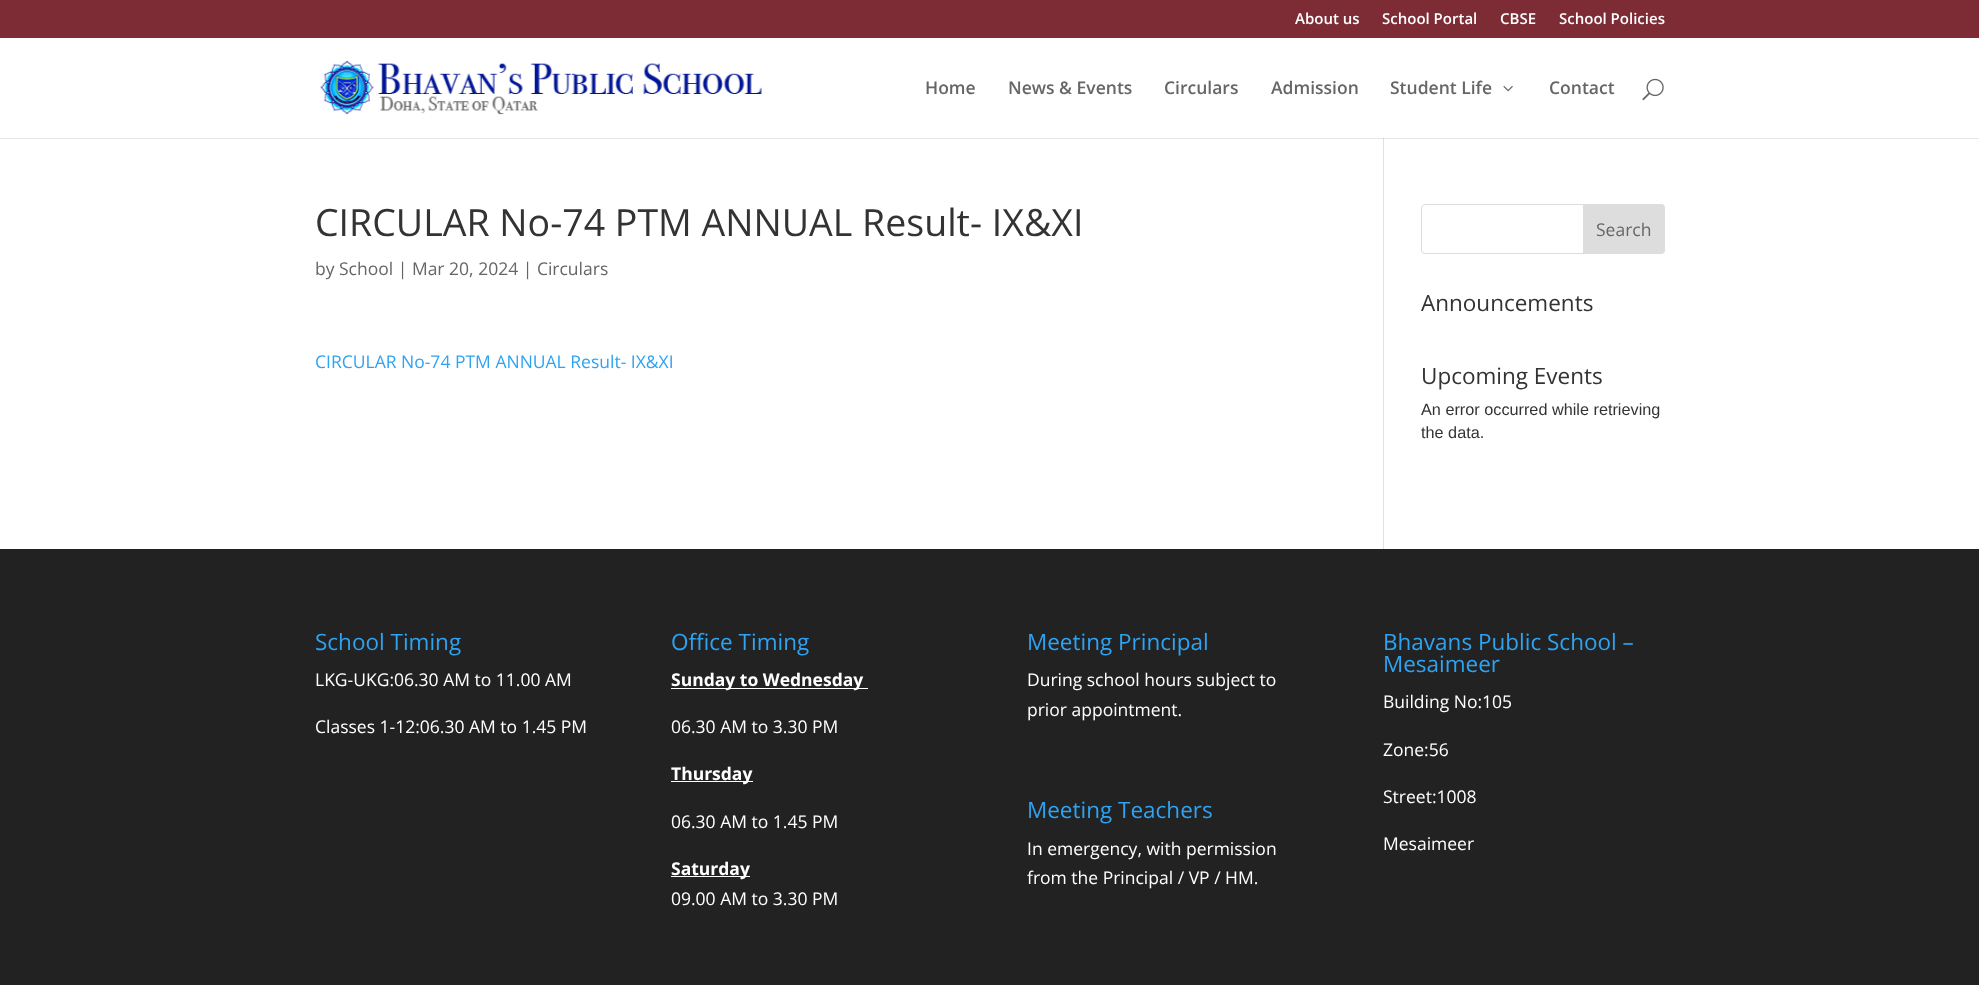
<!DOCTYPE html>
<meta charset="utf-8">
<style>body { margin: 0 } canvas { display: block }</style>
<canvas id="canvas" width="1979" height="985"></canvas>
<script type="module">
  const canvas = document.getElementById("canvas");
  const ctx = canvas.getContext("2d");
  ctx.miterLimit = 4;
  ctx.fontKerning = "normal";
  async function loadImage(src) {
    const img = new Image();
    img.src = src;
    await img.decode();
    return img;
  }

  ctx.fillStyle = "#ffffff";
  ctx.fillRect(0, 0, 1979, 985);
  ctx.fillStyle = "#e6e6e6";
  ctx.fillRect(0, 138, 1979, 1);
  ctx.fillStyle = "#7d2c35";
  ctx.fillRect(0, 0, 1979, 38);
  ctx.font = "600 15px Open Sans";
  ctx.fillStyle = "#ffffff";
  ctx.fillText("About us", 1295, 24);
  ctx.fillText("School Portal", 1382, 24);
  ctx.fillText("CBSE", 1500, 24);
  ctx.fillText("School Policies", 1559, 24);
  ctx.fillStyle = "#e2e2e2";
  ctx.fillRect(1383, 131, 1, 418);
  ctx.fillStyle = "#ffffff";
  ctx.fillRect(1383, 131, 1, 7);
  ctx.drawImage(await loadImage("img1.png"), 320, 60, 442, 55);
  ctx.font = "600 17.5px Open Sans";
  ctx.fillStyle = "#666666";
  ctx.fillText("Home", 925, 94);
  ctx.fillText("News & Events", 1008, 94);
  ctx.fillText("Circulars", 1164, 94);
  ctx.fillText("Admission", 1271, 94);
  ctx.fillText("Student Life", 1390, 94);
  ctx.drawImage(await loadImage("img2.png"), 1503, 86, 10, 6);
  ctx.fillText("Contact", 1549, 94);
  ctx.drawImage(await loadImage("img3.png"), 1642, 78, 22, 23);
  ctx.fillStyle = "#cbcbcb";
  ctx.fillRect(1383, 138, 1, 1);
  ctx.font = "37.5px Open Sans";
  ctx.fillStyle = "#333333";
  ctx.fillText("CIRCULAR No-74 PTM ANNUAL Result- IX&XI", 315, 236);
  ctx.font = "17.5px Open Sans";
  ctx.fillStyle = "#666666";
  ctx.fillText("by School | Mar 20, 2024 | Circulars", 315, 275);
  ctx.fillStyle = "#2ea3f2";
  ctx.fillText("CIRCULAR No-74 PTM ANNUAL Result- IX&XI", 315, 368);
  ctx.beginPath();
  ctx.roundRect(1421.5, 204.5, 243, 49, 3.5);
  ctx.strokeStyle = "#dddddd";
  ctx.stroke();
  ctx.fillStyle = "#dddddd";
  ctx.beginPath();
  ctx.roundRect(1583.5, 204.5, 81, 49, [0, 3.5, 3.5, 0]);
  ctx.fill();
  ctx.stroke();
  ctx.fillStyle = "#666666";
  ctx.fillText("Search", 1596, 236);
  ctx.font = "22.5px Open Sans";
  ctx.fillStyle = "#333333";
  ctx.fillText("Announcements", 1421, 311);
  ctx.fillText("Upcoming Events", 1421, 384);
  ctx.font = "16.25px Liberation Sans";
  ctx.fillText("An error occurred while retrieving", 1421, 415);
  ctx.fillText("the data.", 1421, 438);
  ctx.fillStyle = "#222222";
  ctx.fillRect(0, 549, 1979, 436);
  ctx.font = "22.5px Open Sans";
  ctx.fillStyle = "#2ea3f2";
  ctx.fillText("School Timing", 315, 650);
  ctx.font = "17.5px Open Sans";
  ctx.fillStyle = "#ffffff";
  ctx.fillText("LKG-UKG:06.30 AM to 11.00 AM", 315, 686);
  ctx.fillText("Classes 1-12:06.30 AM to 1.45 PM", 315, 733);
  ctx.font = "22.5px Open Sans";
  ctx.fillStyle = "#2ea3f2";
  ctx.fillText("Office Timing", 671, 650);
  ctx.fillStyle = "#ffffff";
  ctx.fillRect(671, 688, 197, 1);
  ctx.font = "bold 17.5px Open Sans";
  ctx.fillText("Sunday to Wednesday", 671, 686);
  ctx.font = "17.5px Open Sans";
  ctx.fillText("06.30 AM to 3.30 PM", 671, 733);
  ctx.fillRect(671, 781, 82, 1);
  ctx.font = "bold 17.5px Open Sans";
  ctx.fillText("Thursday", 671, 780);
  ctx.font = "17.5px Open Sans";
  ctx.fillText("06.30 AM to 1.45 PM", 671, 828);
  ctx.fillRect(671, 876, 79, 1);
  ctx.font = "bold 17.5px Open Sans";
  ctx.fillText("Saturday", 671, 875);
  ctx.font = "17.5px Open Sans";
  ctx.fillText("09.00 AM to 3.30 PM", 671, 905);
  ctx.font = "22.5px Open Sans";
  ctx.fillStyle = "#2ea3f2";
  ctx.fillText("Meeting Principal", 1027, 650);
  ctx.font = "17.5px Open Sans";
  ctx.fillStyle = "#ffffff";
  ctx.fillText("During school hours subject to", 1027, 686);
  ctx.fillText("prior appointment.", 1027, 716);
  ctx.font = "22.5px Open Sans";
  ctx.fillStyle = "#2ea3f2";
  ctx.fillText("Meeting Teachers", 1027, 818);
  ctx.font = "17.5px Open Sans";
  ctx.fillStyle = "#ffffff";
  ctx.fillText("In emergency, with permission", 1027, 855);
  ctx.fillText("from the Principal / VP / HM.", 1027, 884);
  ctx.font = "22.5px Open Sans";
  ctx.fillStyle = "#2ea3f2";
  ctx.fillText("Bhavans Public School –", 1383, 650);
  ctx.fillText("Mesaimeer", 1383, 672);
  ctx.font = "17.5px Open Sans";
  ctx.fillStyle = "#ffffff";
  ctx.fillText("Building No:105", 1383, 708);
  ctx.fillText("Zone:56", 1383, 756);
  ctx.fillText("Street:1008", 1383, 803);
  ctx.fillText("Mesaimeer", 1383, 850);
</script>
